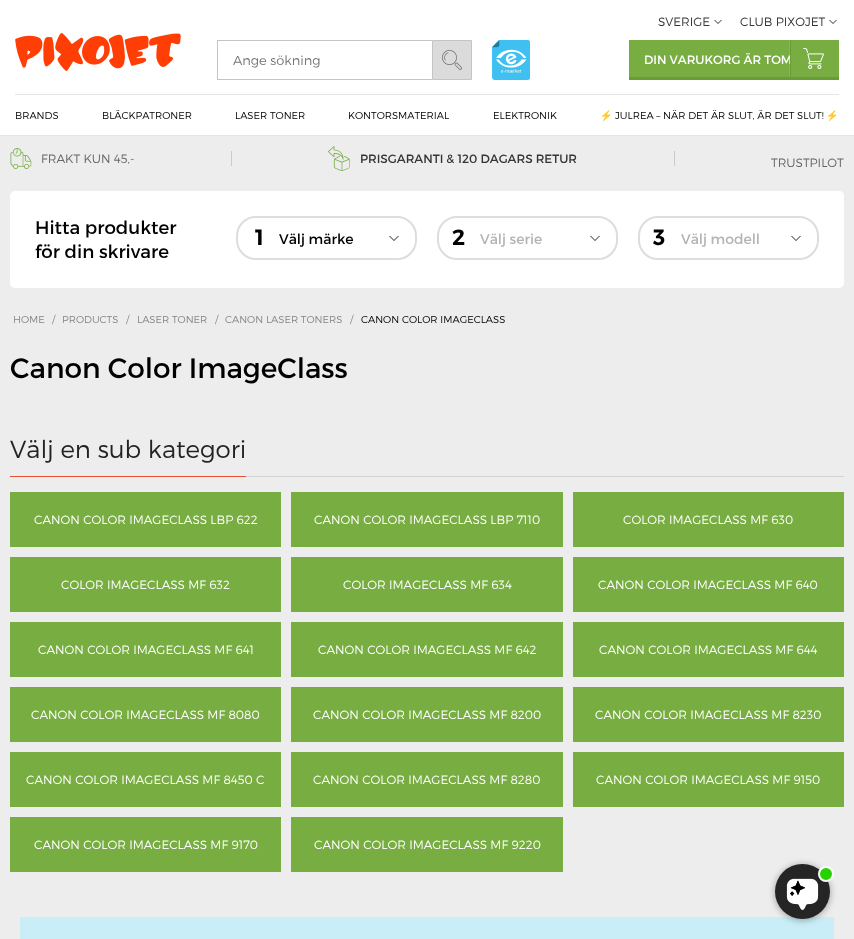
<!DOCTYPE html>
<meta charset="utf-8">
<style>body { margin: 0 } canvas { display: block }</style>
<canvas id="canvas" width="854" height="939"></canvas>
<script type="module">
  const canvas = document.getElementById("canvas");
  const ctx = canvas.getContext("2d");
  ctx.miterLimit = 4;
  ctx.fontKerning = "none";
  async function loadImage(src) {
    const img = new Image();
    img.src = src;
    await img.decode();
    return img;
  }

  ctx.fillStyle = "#ffffff";
  ctx.fillRect(0, 0, 854, 939);
  ctx.fillStyle = "#e5e5e5";
  ctx.fillRect(0, 135, 854, 1);
  ctx.font = "300 12px Montserrat";
  ctx.fillStyle = "#353535";
  ctx.fillText("SVERIGE", 658, 26);
  ctx.beginPath();
  ctx.moveTo(714, 20);
  ctx.lineTo(722, 20);
  ctx.lineTo(718, 24);
  ctx.closePath();
  ctx.fill();
  ctx.fillStyle = "#ffffff";
  ctx.beginPath();
  ctx.moveTo(714, 19);
  ctx.lineTo(722, 19);
  ctx.lineTo(718, 23);
  ctx.closePath();
  ctx.fill();
  ctx.fillStyle = "#353535";
  ctx.fillText("CLUB PIXOJET", 740, 26);
  ctx.beginPath();
  ctx.moveTo(829, 20);
  ctx.lineTo(837, 20);
  ctx.lineTo(833, 24);
  ctx.closePath();
  ctx.fill();
  ctx.fillStyle = "#ffffff";
  ctx.beginPath();
  ctx.moveTo(829, 19);
  ctx.lineTo(837, 19);
  ctx.lineTo(833, 23);
  ctx.closePath();
  ctx.fill();
  ctx.fillStyle = "#e5e5e5";
  ctx.fillRect(15, 94, 824, 1);
  ctx.font = "300 10px Montserrat";
  ctx.fillStyle = "#000000";
  ctx.fillText("BRANDS", 15, 119);
  ctx.fillText("BLÄCKPATRONER", 102, 119);
  ctx.fillText("LASER TONER", 235, 119);
  ctx.fillText("KONTORSMATERIAL", 348, 119);
  ctx.fillText("ELEKTRONIK", 493, 119);
  ctx.font = "10px Noto Color Emoji";
  ctx.fillText("⚡", 600, 119);
  ctx.font = "300 10px Montserrat";
  ctx.fillText("JULREA – NÄR DET ÄR SLUT, ÄR DET SLUT!", 615, 119);
  ctx.font = "10px Noto Color Emoji";
  ctx.fillText("⚡", 826, 119);
  ctx.fillStyle = "#c4c4c4";
  ctx.fillRect(217, 40, 215, 1);
  ctx.fillRect(217, 79, 215, 1);
  ctx.fillRect(217, 40, 1, 40);
  ctx.font = "300 13px Montserrat";
  ctx.fillStyle = "#757575";
  ctx.fillText("Ange sökning", 233, 65);
  ctx.fillStyle = "#dbdbdb";
  ctx.beginPath();
  ctx.rect(432.5, 40.5, 39, 39);
  ctx.fill();
  ctx.strokeStyle = "#c4c4c4";
  ctx.stroke();
  ctx.drawImage(await loadImage("img1.png"), 442, 50, 20, 20);
  ctx.drawImage(await loadImage("img2.png"), 15, 33, 166, 38);
  ctx.drawImage(await loadImage("img3.png"), 492, 40, 38, 40);
  ctx.fillStyle = "#77ad41";
  ctx.fillRect(629, 40, 210, 37);
  ctx.fillStyle = "#699b38";
  ctx.fillRect(629, 77, 210, 3);
  ctx.font = "12px Montserrat";
  ctx.fillStyle = "#ffffff";
  ctx.fillText("DIN VARUKORG ÄR TOM", 644, 64);
  ctx.fillStyle = "rgba(255, 255, 255, 0.12)";
  ctx.fillRect(789, 40, 1, 37);
  ctx.fillStyle = "#699b38";
  ctx.fillRect(790, 40, 1, 37);
  ctx.drawImage(await loadImage("img4.png"), 803, 48, 21, 21);
  ctx.fillStyle = "#ededed";
  ctx.fillRect(0, 136, 854, 803);
  ctx.drawImage(await loadImage("img5.png"), 10, 148, 22, 21);
  ctx.font = "300 12px Montserrat";
  ctx.fillStyle = "#666666";
  ctx.fillText("FRAKT KUN 45,-", 41, 163);
  ctx.fillStyle = "#cacaca";
  ctx.fillRect(231, 151, 1, 15);
  ctx.drawImage(await loadImage("img6.png"), 328, 146, 22, 25);
  ctx.font = "12px Montserrat";
  ctx.fillStyle = "#353535";
  ctx.fillText("PRISGARANTI & 120 DAGARS RETUR", 360, 163);
  ctx.fillStyle = "#cacaca";
  ctx.fillRect(674, 151, 1, 15);
  ctx.font = "300 12px Montserrat";
  ctx.fillStyle = "#666666";
  ctx.fillText("TRUSTPILOT", 771, 167);
  ctx.fillStyle = "#ffffff";
  ctx.beginPath();
  ctx.roundRect(10, 191, 834, 97, 5);
  ctx.fill();
  ctx.font = "18.25px Montserrat";
  ctx.fillStyle = "#000000";
  ctx.fillText("Hitta produkter", 35, 234);
  ctx.fillText("för din skrivare", 35, 258);
  ctx.beginPath();
  ctx.roundRect(237, 217, 179, 42, 19);
  ctx.strokeStyle = "#dddddd";
  ctx.lineWidth = 2;
  ctx.stroke();
  ctx.font = "600 22px Montserrat";
  ctx.fillText("1", 255, 245);
  ctx.fillStyle = "#ffffff";
  ctx.beginPath();
  ctx.roundRect(264, 218, 151, 40, [0, 20, 20, 0]);
  ctx.fill();
  ctx.font = "14px Montserrat";
  ctx.fillStyle = "#000000";
  ctx.fillText("Välj märke", 279, 244);
  ctx.fillStyle = "#232323";
  ctx.beginPath();
  ctx.moveTo(389, 236);
  ctx.lineTo(399, 236);
  ctx.lineTo(394, 241);
  ctx.closePath();
  ctx.fill();
  ctx.fillStyle = "#ffffff";
  ctx.beginPath();
  ctx.moveTo(389, 235);
  ctx.lineTo(399, 235);
  ctx.lineTo(394, 240);
  ctx.closePath();
  ctx.fill();
  ctx.beginPath();
  ctx.roundRect(438, 217, 179, 42, 19);
  ctx.stroke();
  ctx.font = "600 22px Montserrat";
  ctx.fillStyle = "#000000";
  ctx.fillText("2", 452, 245);
  ctx.fillStyle = "#ffffff";
  ctx.beginPath();
  ctx.roundRect(465, 218, 151, 40, [0, 20, 20, 0]);
  ctx.fill();
  ctx.font = "14px Montserrat";
  ctx.fillStyle = "#b3b3b3";
  ctx.fillText("Välj serie", 480, 244);
  ctx.fillStyle = "#232323";
  ctx.beginPath();
  ctx.moveTo(590, 236);
  ctx.lineTo(600, 236);
  ctx.lineTo(595, 241);
  ctx.closePath();
  ctx.fill();
  ctx.fillStyle = "#ffffff";
  ctx.beginPath();
  ctx.moveTo(590, 235);
  ctx.lineTo(600, 235);
  ctx.lineTo(595, 240);
  ctx.closePath();
  ctx.fill();
  ctx.beginPath();
  ctx.roundRect(639, 217, 179, 42, 19);
  ctx.stroke();
  ctx.font = "600 22px Montserrat";
  ctx.fillStyle = "#000000";
  ctx.fillText("3", 653, 245);
  ctx.fillStyle = "#ffffff";
  ctx.beginPath();
  ctx.roundRect(666, 218, 151, 40, [0, 20, 20, 0]);
  ctx.fill();
  ctx.font = "14px Montserrat";
  ctx.fillStyle = "#b3b3b3";
  ctx.fillText("Välj modell", 681, 244);
  ctx.fillStyle = "#232323";
  ctx.beginPath();
  ctx.moveTo(791, 236);
  ctx.lineTo(801, 236);
  ctx.lineTo(796, 241);
  ctx.closePath();
  ctx.fill();
  ctx.fillStyle = "#ffffff";
  ctx.beginPath();
  ctx.moveTo(791, 235);
  ctx.lineTo(801, 235);
  ctx.lineTo(796, 240);
  ctx.closePath();
  ctx.fill();
  ctx.font = "300 10px Montserrat";
  ctx.fillStyle = "#858585";
  ctx.fillText("HOME", 13, 323);
  ctx.fillText("/", 52, 323);
  ctx.fillText("PRODUCTS", 62, 323);
  ctx.fillText("/", 126, 323);
  ctx.fillText("LASER TONER", 137, 323);
  ctx.fillText("/", 215, 323);
  ctx.fillText("CANON LASER TONERS", 225, 323);
  ctx.fillText("/", 350, 323);
  ctx.fillStyle = "#000000";
  ctx.fillText("CANON COLOR IMAGECLASS", 361, 323);
  ctx.font = "28px Montserrat";
  ctx.fillText("Canon Color ImageClass", 10, 378);
  ctx.fillStyle = "#d3d3d3";
  ctx.fillRect(246, 476, 598, 1);
  ctx.fillStyle = "#eb4c36";
  ctx.fillRect(10, 476, 236, 1);
  ctx.font = "300 24.5px Montserrat";
  ctx.fillStyle = "#232323";
  ctx.fillText("Välj en sub kategori", 10, 458);
  ctx.fillStyle = "#77ad41";
  ctx.fillRect(10, 492, 271, 55);
  ctx.font = "300 12px Montserrat";
  ctx.fillStyle = "#ffffff";
  ctx.fillText("CANON COLOR IMAGECLASS LBP 622", 34, 524);
  ctx.fillStyle = "#77ad41";
  ctx.fillRect(291, 492, 272, 55);
  ctx.fillStyle = "#ffffff";
  ctx.fillText("CANON COLOR IMAGECLASS LBP 7110", 314, 524);
  ctx.fillStyle = "#77ad41";
  ctx.fillRect(573, 492, 271, 55);
  ctx.fillStyle = "#ffffff";
  ctx.fillText("COLOR IMAGECLASS MF 630", 623, 524);
  ctx.fillStyle = "#77ad41";
  ctx.fillRect(10, 557, 271, 55);
  ctx.fillStyle = "#ffffff";
  ctx.fillText("COLOR IMAGECLASS MF 632", 61, 589);
  ctx.fillStyle = "#77ad41";
  ctx.fillRect(291, 557, 272, 55);
  ctx.fillStyle = "#ffffff";
  ctx.fillText("COLOR IMAGECLASS MF 634", 343, 589);
  ctx.fillStyle = "#77ad41";
  ctx.fillRect(573, 557, 271, 55);
  ctx.fillStyle = "#ffffff";
  ctx.fillText("CANON COLOR IMAGECLASS MF 640", 598, 589);
  ctx.fillStyle = "#77ad41";
  ctx.fillRect(10, 622, 271, 55);
  ctx.fillStyle = "#ffffff";
  ctx.fillText("CANON COLOR IMAGECLASS MF 641", 38, 654);
  ctx.fillStyle = "#77ad41";
  ctx.fillRect(291, 622, 272, 55);
  ctx.fillStyle = "#ffffff";
  ctx.fillText("CANON COLOR IMAGECLASS MF 642", 318, 654);
  ctx.fillStyle = "#77ad41";
  ctx.fillRect(573, 622, 271, 55);
  ctx.fillStyle = "#ffffff";
  ctx.fillText("CANON COLOR IMAGECLASS MF 644", 599, 654);
  ctx.fillStyle = "#77ad41";
  ctx.fillRect(10, 687, 271, 55);
  ctx.fillStyle = "#ffffff";
  ctx.fillText("CANON COLOR IMAGECLASS MF 8080", 31, 719);
  ctx.fillStyle = "#77ad41";
  ctx.fillRect(291, 687, 272, 55);
  ctx.fillStyle = "#ffffff";
  ctx.fillText("CANON COLOR IMAGECLASS MF 8200", 313, 719);
  ctx.fillStyle = "#77ad41";
  ctx.fillRect(573, 687, 271, 55);
  ctx.fillStyle = "#ffffff";
  ctx.fillText("CANON COLOR IMAGECLASS MF 8230", 595, 719);
  ctx.fillStyle = "#77ad41";
  ctx.fillRect(10, 752, 271, 55);
  ctx.fillStyle = "#ffffff";
  ctx.fillText("CANON COLOR IMAGECLASS MF 8450 C", 26, 784);
  ctx.fillStyle = "#77ad41";
  ctx.fillRect(291, 752, 272, 55);
  ctx.fillStyle = "#ffffff";
  ctx.fillText("CANON COLOR IMAGECLASS MF 8280", 313, 784);
  ctx.fillStyle = "#77ad41";
  ctx.fillRect(573, 752, 271, 55);
  ctx.fillStyle = "#ffffff";
  ctx.fillText("CANON COLOR IMAGECLASS MF 9150", 596, 784);
  ctx.fillStyle = "#77ad41";
  ctx.fillRect(10, 817, 271, 55);
  ctx.fillStyle = "#ffffff";
  ctx.fillText("CANON COLOR IMAGECLASS MF 9170", 34, 849);
  ctx.fillStyle = "#77ad41";
  ctx.fillRect(291, 817, 272, 55);
  ctx.fillStyle = "#ffffff";
  ctx.fillText("CANON COLOR IMAGECLASS MF 9220", 314, 849);
  ctx.fillStyle = "#caeef7";
  ctx.fillRect(20, 917, 814, 22);
  ctx.fillStyle = "rgba(0, 0, 0, 0.35)";
  ctx.filter = "blur(3.5px)";
  ctx.beginPath();
  ctx.roundRect(775, 865, 55, 55, 27.5);
  ctx.fill();
  ctx.filter = "none";
  ctx.fillStyle = "#252525";
  ctx.beginPath();
  ctx.arc(802.5, 891.5, 27.5, 0, Math.PI * 2);
  ctx.fill();
  ctx.drawImage(await loadImage("img7.png"), 786, 878, 33, 32);
  ctx.fillStyle = "#25d300";
  ctx.beginPath();
  ctx.arc(826, 874, 7, 0, Math.PI * 2);
  ctx.fill();
  ctx.strokeStyle = "#ffffff";
  ctx.stroke();
</script>
